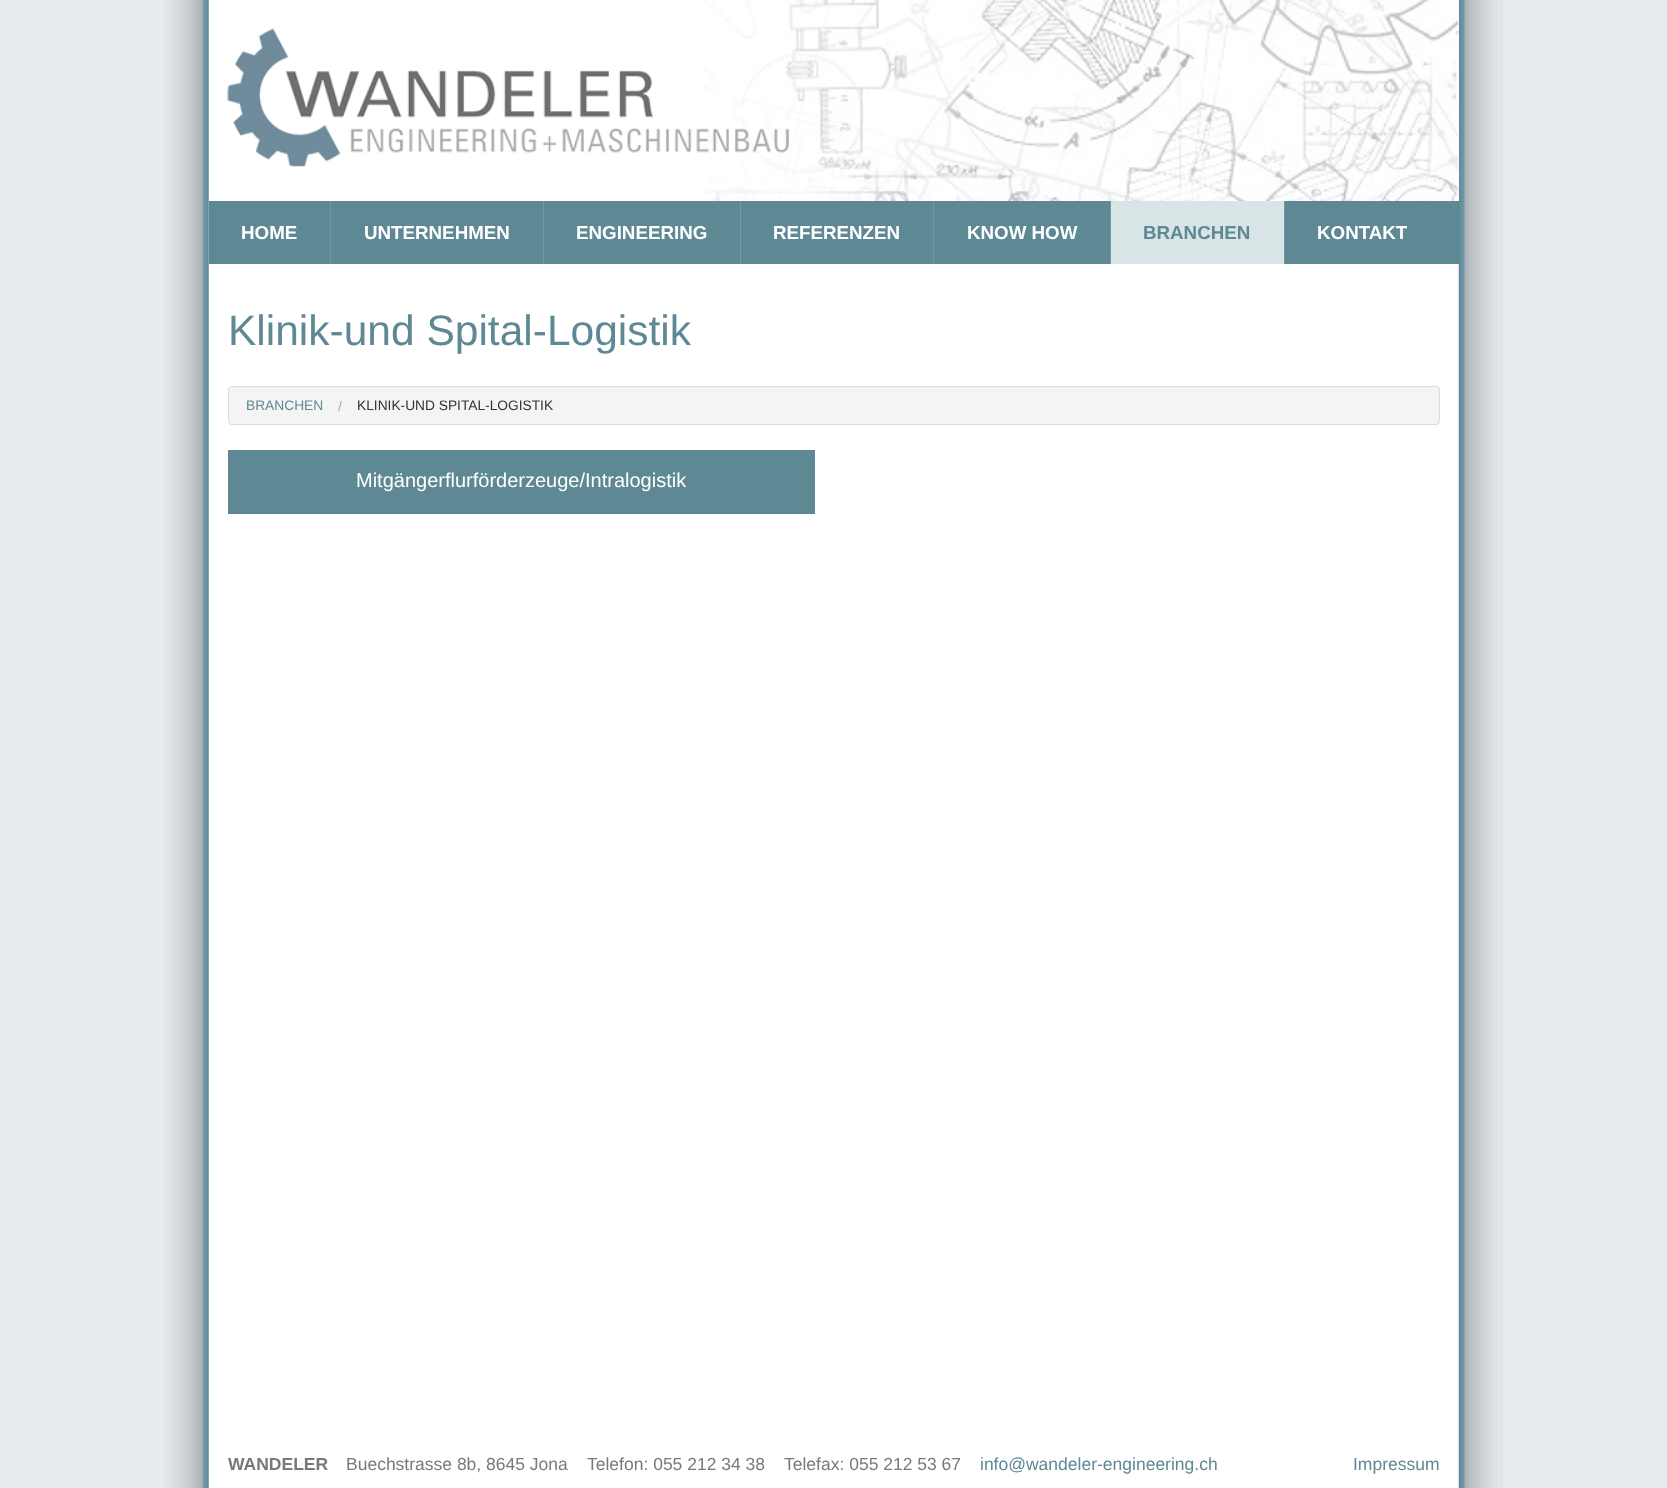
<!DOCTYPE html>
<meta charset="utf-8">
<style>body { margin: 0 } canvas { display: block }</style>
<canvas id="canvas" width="1667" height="1488"></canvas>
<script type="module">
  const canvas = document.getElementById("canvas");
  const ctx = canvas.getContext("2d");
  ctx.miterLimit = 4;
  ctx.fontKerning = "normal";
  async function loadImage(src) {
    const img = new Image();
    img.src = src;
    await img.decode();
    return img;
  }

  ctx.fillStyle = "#e5ebee";
  ctx.fillRect(0, 0, 1667, 1488);
  ctx.drawImage(await loadImage("img1.png"), 164, 0, 1339, 1488);
  ctx.fillStyle = "#ffffff";
  ctx.fillRect(1458, 0, 1, 201);
  ctx.drawImage(await loadImage("img2.png"), 704, 0, 755, 201);
  ctx.drawImage(await loadImage("img3.png"), 227, 28, 562, 139);
  ctx.fillStyle = "#5e8994";
  ctx.fillRect(209, 201, 1250, 63);
  ctx.font = "bold 18.75px Liberation Sans";
  ctx.fillStyle = "#ffffff";
  ctx.fillText("HOME", 241, 239);
  ctx.fillStyle = "#709aa4";
  ctx.fillRect(330, 201, 1, 63);
  ctx.fillStyle = "#ffffff";
  ctx.fillText("UNTERNEHMEN", 364, 239);
  ctx.fillStyle = "#709aa4";
  ctx.fillRect(543, 201, 1, 63);
  ctx.fillStyle = "#ffffff";
  ctx.fillText("ENGINEERING", 576, 239);
  ctx.fillStyle = "#709aa4";
  ctx.fillRect(740, 201, 1, 63);
  ctx.fillStyle = "#ffffff";
  ctx.fillText("REFERENZEN", 773, 239);
  ctx.fillStyle = "#709aa4";
  ctx.fillRect(933, 201, 1, 63);
  ctx.fillStyle = "#ffffff";
  ctx.fillText("KNOW HOW", 967, 239);
  ctx.fillStyle = "#709aa4";
  ctx.fillRect(1110, 201, 1, 63);
  ctx.fillStyle = "#d8e4e5";
  ctx.fillRect(1111, 201, 173, 63);
  ctx.fillStyle = "#5e8994";
  ctx.fillText("BRANCHEN", 1143, 239);
  ctx.fillStyle = "#709aa4";
  ctx.fillRect(1284, 201, 1, 63);
  ctx.fillStyle = "#ffffff";
  ctx.fillText("KONTAKT", 1317, 239);
  ctx.font = "42.5px Liberation Sans";
  ctx.fillStyle = "#5e8994";
  ctx.fillText("Klinik-und Spital-Logistik", 228, 345);
  ctx.fillStyle = "#f4f4f4";
  ctx.beginPath();
  ctx.roundRect(228.5, 386.5, 1211, 38, 3.5);
  ctx.fill();
  ctx.strokeStyle = "#dcdcdc";
  ctx.stroke();
  ctx.font = "13.75px Liberation Sans";
  ctx.fillStyle = "#5e8994";
  ctx.fillText("BRANCHEN", 246, 410);
  ctx.fillStyle = "#aaaaaa";
  ctx.fillText("/", 338, 411);
  ctx.fillStyle = "#333333";
  ctx.fillText("KLINIK-UND SPITAL-LOGISTIK", 357, 410);
  ctx.fillStyle = "#5e8994";
  ctx.fillRect(228, 450, 587, 64);
  ctx.font = "20px Liberation Sans";
  ctx.fillStyle = "#ffffff";
  ctx.fillText("Mitgängerflurförderzeuge/Intralogistik", 356, 487);
  ctx.font = "bold 17.5px Liberation Sans";
  ctx.fillStyle = "#797979";
  ctx.fillText("WANDELER", 228, 1470);
  ctx.font = "17.5px Liberation Sans";
  ctx.fillText("Buechstrasse 8b, 8645 Jona", 346, 1470);
  ctx.fillText("Telefon: 055 212 34 38", 587, 1470);
  ctx.fillText("Telefax: 055 212 53 67", 784, 1470);
  ctx.fillStyle = "#5e8994";
  ctx.fillText("info@wandeler-engineering.ch", 980, 1470);
  ctx.fillText("Impressum", 1353, 1470);
</script>
